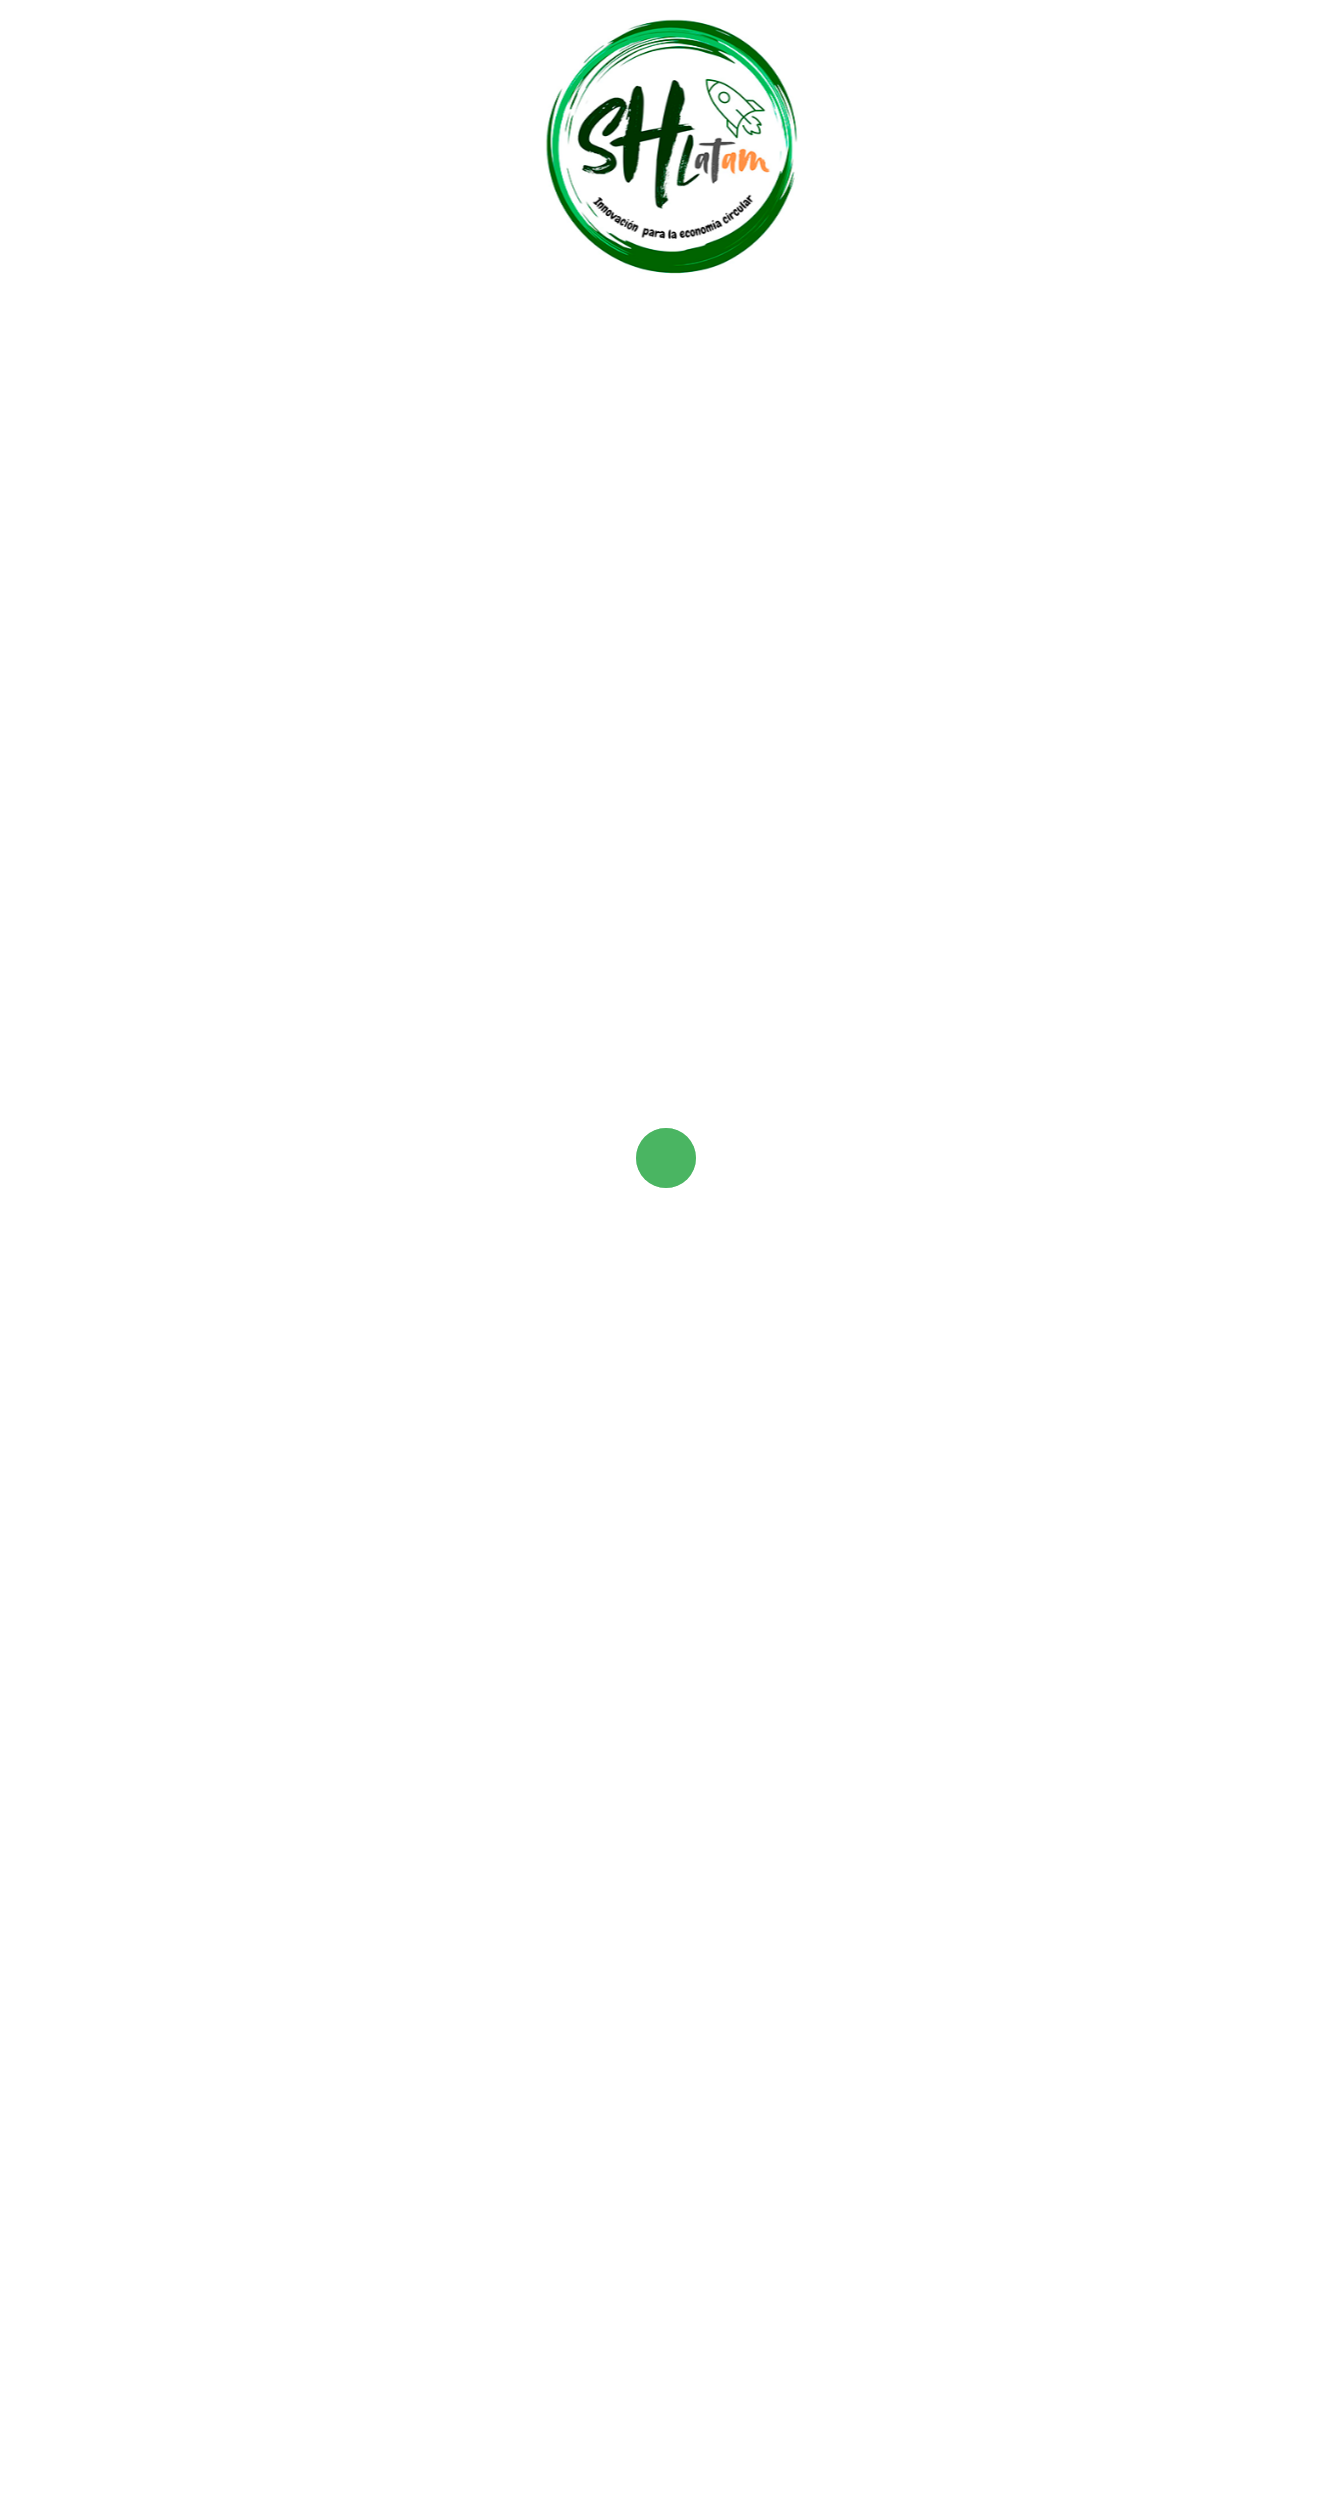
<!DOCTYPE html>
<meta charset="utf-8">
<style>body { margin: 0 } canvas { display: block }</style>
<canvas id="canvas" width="1343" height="2507"></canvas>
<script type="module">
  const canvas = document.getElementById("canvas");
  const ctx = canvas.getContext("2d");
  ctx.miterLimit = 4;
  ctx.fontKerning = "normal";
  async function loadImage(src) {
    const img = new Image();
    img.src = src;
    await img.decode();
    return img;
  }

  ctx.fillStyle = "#ffffff";
  ctx.fillRect(0, 0, 1343, 2507);
  ctx.drawImage(await loadImage("img1.png"), 545, 19, 253, 255);
  ctx.fillStyle = "#7eca8f";
  ctx.beginPath();
  ctx.arc(666, 1158, 30, 0, Math.PI * 2);
  ctx.fill();
  ctx.fillStyle = "rgba(40, 167, 69, 0.6)";
  ctx.beginPath();
  ctx.arc(666, 1158, 30, 0, Math.PI * 2);
  ctx.fill();
</script>
